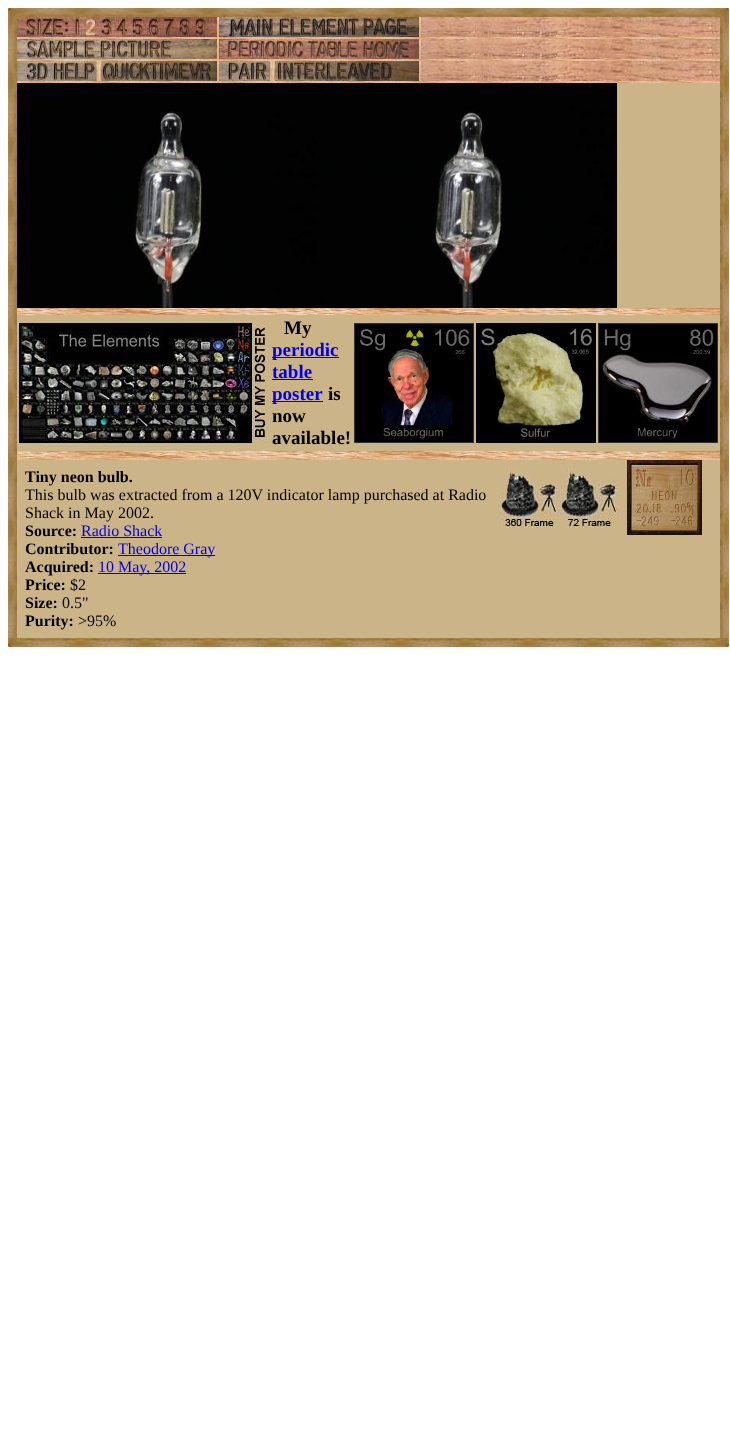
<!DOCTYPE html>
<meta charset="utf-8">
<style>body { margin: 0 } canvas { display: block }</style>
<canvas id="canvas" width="730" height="1436"></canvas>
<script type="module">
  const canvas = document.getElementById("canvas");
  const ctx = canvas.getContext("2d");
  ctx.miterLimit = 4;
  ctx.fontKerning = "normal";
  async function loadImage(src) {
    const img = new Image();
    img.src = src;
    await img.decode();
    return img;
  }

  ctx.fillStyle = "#ffffff";
  ctx.fillRect(0, 0, 730, 1436);
  ctx.drawImage(await loadImage("img1.png"), 8, 8, 9, 9);
  ctx.drawImage(await loadImage("img2.png"), 17, 8, 703, 9);
  ctx.drawImage(await loadImage("img3.png"), 720, 8, 9, 9);
  ctx.drawImage(await loadImage("img4.png"), 8, 17, 9, 621);
  ctx.fillStyle = "#cbb488";
  ctx.fillRect(17, 83, 703, 555);
  ctx.drawImage(await loadImage("img5.png"), 17, 17, 200, 20);
  ctx.drawImage(await loadImage("img6.png"), 217, 17, 2, 20);
  ctx.drawImage(await loadImage("img7.png"), 219, 17, 200, 20);
  ctx.drawImage(await loadImage("img6.png"), 419, 17, 2, 20);
  ctx.drawImage(await loadImage("img8.png"), 421, 17, 299, 20);
  ctx.drawImage(await loadImage("img9.png"), 17, 37, 703, 2);
  ctx.drawImage(await loadImage("img10.png"), 17, 39, 200, 20);
  ctx.drawImage(await loadImage("img6.png"), 217, 39, 2, 20);
  ctx.drawImage(await loadImage("img11.png"), 219, 39, 200, 20);
  ctx.drawImage(await loadImage("img6.png"), 419, 39, 2, 20);
  ctx.drawImage(await loadImage("img8.png"), 421, 39, 299, 20);
  ctx.drawImage(await loadImage("img9.png"), 17, 59, 703, 2);
  ctx.drawImage(await loadImage("img12.png"), 17, 61, 200, 20);
  ctx.drawImage(await loadImage("img6.png"), 217, 61, 2, 20);
  ctx.drawImage(await loadImage("img13.png"), 219, 61, 200, 20);
  ctx.drawImage(await loadImage("img6.png"), 419, 61, 2, 20);
  ctx.drawImage(await loadImage("img8.png"), 421, 61, 299, 20);
  ctx.drawImage(await loadImage("img9.png"), 17, 81, 703, 2);
  ctx.drawImage(await loadImage("img14.png"), 17, 83, 300, 225);
  ctx.drawImage(await loadImage("img15.png"), 317, 83, 300, 225);
  ctx.drawImage(await loadImage("img16.png"), 17, 308, 703, 7);
  ctx.drawImage(await loadImage("img17.png"), 19, 323, 251, 120);
  ctx.font = "bold 19px Liberation Serif";
  ctx.fillStyle = "#000000";
  ctx.fillText("My", 284, 334);
  ctx.fillStyle = "#0000ee";
  ctx.fillRect(272, 357, 67, 1);
  ctx.fillText("periodic", 272, 356);
  ctx.fillText("table", 272, 378);
  ctx.fillRect(272, 379, 41, 1);
  ctx.fillRect(272, 401, 51, 1);
  ctx.fillText("poster", 272, 400);
  ctx.fillStyle = "#000000";
  ctx.fillText("is", 328, 400);
  ctx.fillText("now", 272, 422);
  ctx.fillText("available!", 272, 444);
  ctx.drawImage(await loadImage("img18.png"), 354, 323, 120, 120);
  ctx.drawImage(await loadImage("img19.png"), 476, 323, 120, 120);
  ctx.drawImage(await loadImage("img20.png"), 598, 323, 120, 120);
  ctx.drawImage(await loadImage("img16.png"), 17, 451, 703, 7);
  ctx.drawImage(await loadImage("img9.png"), 17, 458, 703, 2);
  ctx.font = "bold 16px Liberation Serif";
  ctx.fillText("Tiny neon bulb.", 25, 482);
  ctx.drawImage(await loadImage("img21.png"), 499, 468, 60, 60);
  ctx.drawImage(await loadImage("img22.png"), 559, 468, 60, 60);
  ctx.font = "16px Liberation Serif";
  ctx.fillText("This bulb was extracted from a 120V indicator lamp purchased at Radio", 25, 500);
  ctx.fillText("Shack in May 2002.", 25, 518);
  ctx.font = "bold 16px Liberation Serif";
  ctx.fillText("Source:", 25, 536);
  ctx.font = "16px Liberation Serif";
  ctx.fillStyle = "#0000ee";
  ctx.fillText("Radio Shack", 81, 536);
  ctx.fillRect(81, 537, 81, 1);
  ctx.font = "bold 16px Liberation Serif";
  ctx.fillStyle = "#000000";
  ctx.fillText("Contributor:", 25, 554);
  ctx.fillStyle = "#0000ee";
  ctx.fillRect(118, 555, 97, 1);
  ctx.font = "16px Liberation Serif";
  ctx.fillText("Theodore Gray", 118, 554);
  ctx.font = "bold 16px Liberation Serif";
  ctx.fillStyle = "#000000";
  ctx.fillText("Acquired:", 25, 572);
  ctx.fillStyle = "#0000ee";
  ctx.fillRect(98, 573, 88, 1);
  ctx.font = "16px Liberation Serif";
  ctx.fillText("10 May, 2002", 98, 572);
  ctx.font = "bold 16px Liberation Serif";
  ctx.fillStyle = "#000000";
  ctx.fillText("Price:", 25, 590);
  ctx.font = "16px Liberation Serif";
  ctx.fillText("$2", 70, 590);
  ctx.font = "bold 16px Liberation Serif";
  ctx.fillText("Size:", 25, 608);
  ctx.font = "16px Liberation Serif";
  ctx.fillText("0.5\"", 62, 608);
  ctx.font = "bold 16px Liberation Serif";
  ctx.fillText("Purity:", 25, 626);
  ctx.font = "16px Liberation Serif";
  ctx.fillText(">95%", 78, 626);
  ctx.drawImage(await loadImage("img23.png"), 627, 460, 75, 75);
  ctx.drawImage(await loadImage("img24.png"), 720, 17, 9, 621);
  ctx.drawImage(await loadImage("img25.png"), 8, 638, 9, 9);
  ctx.drawImage(await loadImage("img26.png"), 17, 638, 703, 9);
  ctx.drawImage(await loadImage("img27.png"), 720, 638, 9, 9);
</script>
